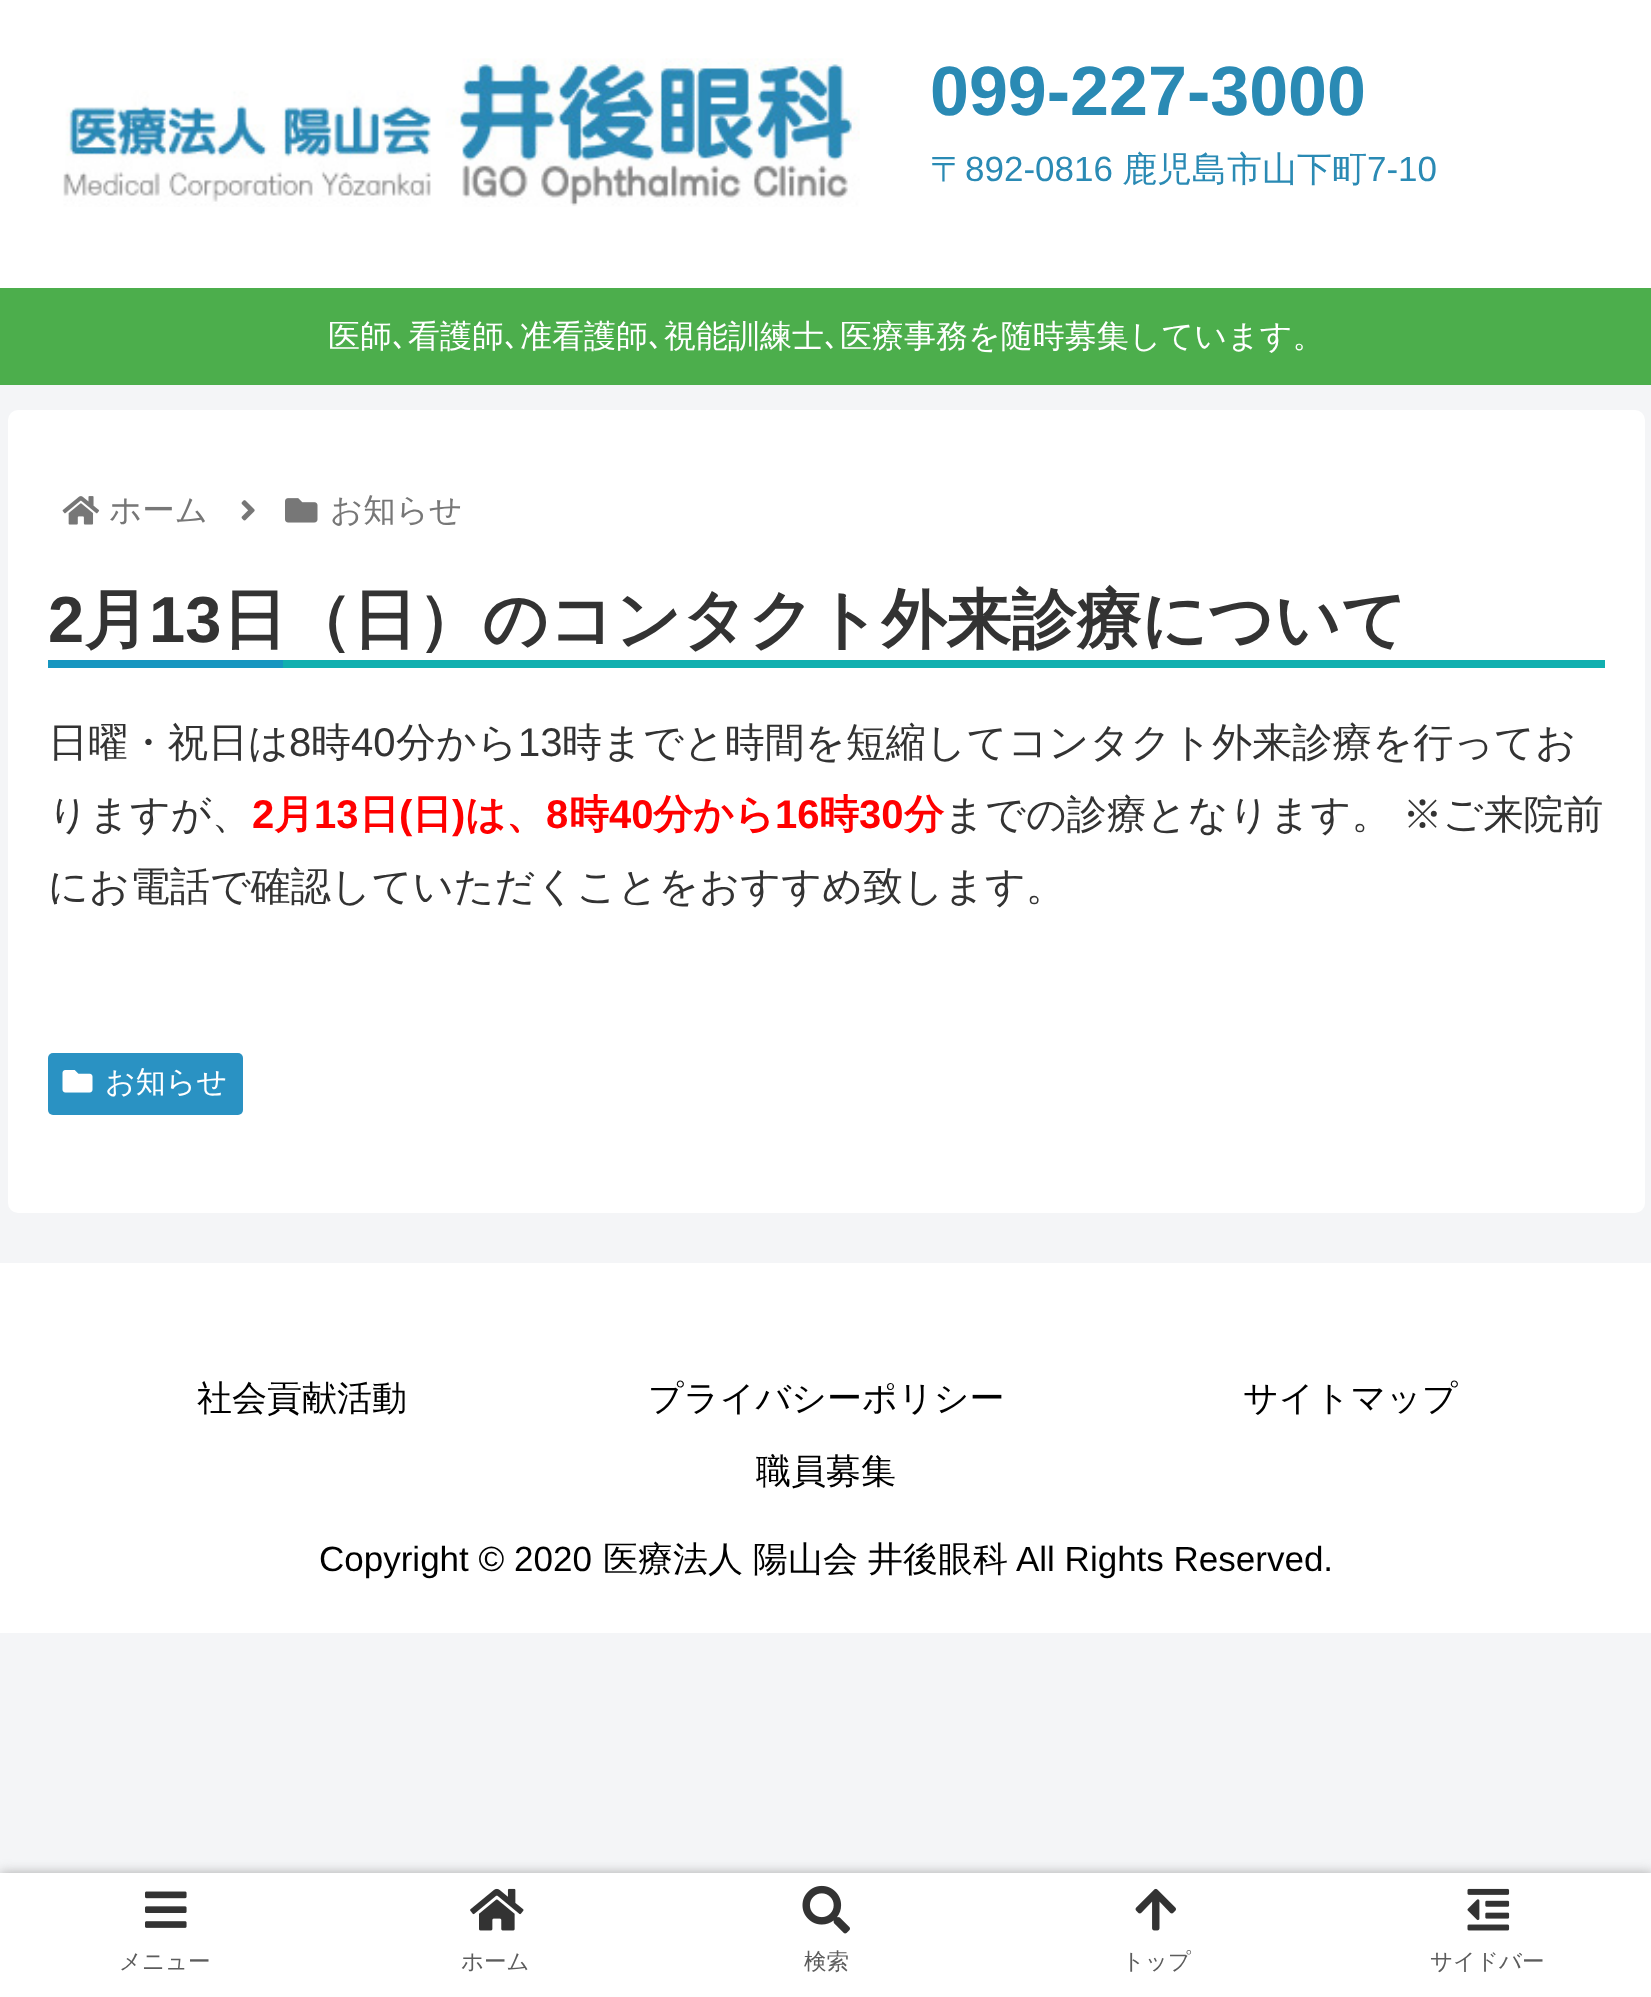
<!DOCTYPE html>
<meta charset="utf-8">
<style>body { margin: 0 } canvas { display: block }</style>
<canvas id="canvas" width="1651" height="1997"></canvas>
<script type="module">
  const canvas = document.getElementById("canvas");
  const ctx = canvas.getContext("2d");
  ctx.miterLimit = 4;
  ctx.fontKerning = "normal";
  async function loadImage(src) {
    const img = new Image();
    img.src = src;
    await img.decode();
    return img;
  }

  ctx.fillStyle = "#f4f5f7";
  ctx.fillRect(0, 0, 1651, 1997);
  ctx.fillStyle = "#ffffff";
  ctx.fillRect(0, 0, 1651, 288);
  ctx.drawImage(await loadImage("img1.png"), 63, 58, 797, 149);
  ctx.font = "bold 70px Liberation Sans";
  ctx.fillStyle = "#2a8ab4";
  ctx.fillText("099-227-3000", 930, 115);
  ctx.font = "500 35px WenQuanYi Zen Hei";
  ctx.fillText("〒", 930, 181);
  ctx.font = "35px Liberation Sans";
  ctx.fillText("892-0816", 965, 181);
  ctx.font = "500 35px WenQuanYi Zen Hei";
  ctx.fillText("鹿児島市山下町", 1122, 181);
  ctx.font = "35px Liberation Sans";
  ctx.fillText("7-10", 1367, 181);
  ctx.fillStyle = "#4cae4c";
  ctx.fillRect(0, 288, 1651, 97);
  ctx.font = "500 32px WenQuanYi Zen Hei";
  ctx.fillStyle = "#ffffff";
  ctx.fillText("医師", 328, 347);
  ctx.font = "32px IPAPGothic";
  ctx.fillText("､", 392, 347);
  ctx.font = "500 32px WenQuanYi Zen Hei";
  ctx.fillText("看護師", 408, 347);
  ctx.font = "32px IPAPGothic";
  ctx.fillText("､", 504, 347);
  ctx.font = "500 32px WenQuanYi Zen Hei";
  ctx.fillText("准看護師", 520, 347);
  ctx.font = "32px IPAPGothic";
  ctx.fillText("､", 648, 347);
  ctx.font = "500 32px WenQuanYi Zen Hei";
  ctx.fillText("視能訓練士", 664, 347);
  ctx.font = "32px IPAPGothic";
  ctx.fillText("､", 824, 347);
  ctx.font = "500 32px WenQuanYi Zen Hei";
  ctx.fillText("医療事務を随時募集しています。", 840, 347);
  ctx.beginPath();
  ctx.roundRect(8, 410, 1637, 803, 10);
  ctx.fill();
  ctx.drawImage(await loadImage("img2.png"), 62, 496, 38, 29);
  ctx.font = "500 32.5px WenQuanYi Zen Hei";
  ctx.fillStyle = "#777777";
  ctx.fillText("ホーム", 109, 521);
  ctx.drawImage(await loadImage("img3.png"), 241, 500, 14, 21);
  ctx.drawImage(await loadImage("img4.png"), 285, 498, 33, 25);
  ctx.fillText("お知らせ", 330, 521);
  ctx.fillStyle = "#11afaf";
  ctx.fillRect(283, 660, 1322, 8);
  ctx.font = "bold 65px Liberation Sans";
  ctx.fillStyle = "#333333";
  ctx.fillText("2", 48, 642);
  ctx.font = "bold 65px WenQuanYi Zen Hei";
  ctx.fillText("月", 84, 642);
  ctx.font = "bold 65px Liberation Sans";
  ctx.fillText("13", 149, 642);
  ctx.font = "bold 65px WenQuanYi Zen Hei";
  ctx.fillText("日（日）のコンタクト外来診療について", 222, 642);
  ctx.fillStyle = "#1796c0";
  ctx.fillRect(48, 660, 235, 8);
  ctx.font = "500 40px WenQuanYi Zen Hei";
  ctx.fillStyle = "#333333";
  ctx.fillText("日曜・祝日は", 48, 756);
  ctx.font = "40px Liberation Sans";
  ctx.fillText("8", 289, 756);
  ctx.font = "500 40px WenQuanYi Zen Hei";
  ctx.fillText("時", 311, 756);
  ctx.font = "40px Liberation Sans";
  ctx.fillText("40", 351, 756);
  ctx.font = "500 40px WenQuanYi Zen Hei";
  ctx.fillText("分から", 396, 756);
  ctx.font = "40px Liberation Sans";
  ctx.fillText("13", 518, 756);
  ctx.font = "500 40px WenQuanYi Zen Hei";
  ctx.fillText("時までと時間を短縮してコンタクト外来診療を行ってお", 562, 756);
  ctx.fillText("りますが、", 48, 828);
  ctx.font = "bold 40px Liberation Sans";
  ctx.fillStyle = "#ff0000";
  ctx.fillText("2", 252, 828);
  ctx.font = "bold 40px WenQuanYi Zen Hei";
  ctx.fillText("月", 274, 828);
  ctx.font = "bold 40px Liberation Sans";
  ctx.fillText("13", 314, 828);
  ctx.font = "bold 40px WenQuanYi Zen Hei";
  ctx.fillText("日", 359, 828);
  ctx.font = "bold 40px Liberation Sans";
  ctx.fillText("(", 399, 828);
  ctx.font = "bold 40px WenQuanYi Zen Hei";
  ctx.fillText("日", 412, 828);
  ctx.font = "bold 40px Liberation Sans";
  ctx.fillText(")", 452, 828);
  ctx.font = "bold 40px WenQuanYi Zen Hei";
  ctx.fillText("は、", 465, 828);
  ctx.font = "bold 40px Liberation Sans";
  ctx.fillText("8", 546, 828);
  ctx.font = "bold 40px WenQuanYi Zen Hei";
  ctx.fillText("時", 569, 828);
  ctx.font = "bold 40px Liberation Sans";
  ctx.fillText("40", 609, 828);
  ctx.font = "bold 40px WenQuanYi Zen Hei";
  ctx.fillText("分から", 653, 828);
  ctx.font = "bold 40px Liberation Sans";
  ctx.fillText("16", 775, 828);
  ctx.font = "bold 40px WenQuanYi Zen Hei";
  ctx.fillText("時", 819, 828);
  ctx.font = "bold 40px Liberation Sans";
  ctx.fillText("30", 859, 828);
  ctx.font = "bold 40px WenQuanYi Zen Hei";
  ctx.fillText("分", 904, 828);
  ctx.wordSpacing = "-1px";
  ctx.font = "500 40px WenQuanYi Zen Hei";
  ctx.fillStyle = "#333333";
  ctx.fillText("までの診療となります。 ※ご来院前", 944, 828);
  ctx.wordSpacing = "0px";
  ctx.fillText("にお電話で確認していただくことをおすすめ致します。", 48, 900);
  ctx.fillStyle = "#2a92c3";
  ctx.beginPath();
  ctx.roundRect(48, 1053, 195, 62, 5);
  ctx.fill();
  ctx.drawImage(await loadImage("img5.png"), 62, 1070, 31, 23);
  ctx.font = "500 30px WenQuanYi Zen Hei";
  ctx.fillStyle = "#ffffff";
  ctx.fillText("お知らせ", 105, 1092);
  ctx.fillRect(0, 1263, 1651, 370);
  ctx.font = "500 35px WenQuanYi Zen Hei";
  ctx.fillStyle = "#000000";
  ctx.fillText("社会貢献活動", 197, 1410);
  ctx.fillText("プライバシーポリシー", 648, 1410);
  ctx.fillText("サイトマップ", 1243, 1410);
  ctx.fillText("職員募集", 756, 1483);
  ctx.font = "35px Liberation Sans";
  ctx.fillText("Copyright © 2020", 319, 1571);
  ctx.font = "500 35px WenQuanYi Zen Hei";
  ctx.fillText("医療法人", 603, 1571);
  ctx.fillText("陽山会", 753, 1571);
  ctx.fillText("井後眼科", 868, 1571);
  ctx.font = "35px Liberation Sans";
  ctx.fillText("All Rights Reserved.", 1016, 1571);
  ctx.fillStyle = "#a9a9a9";
  ctx.filter = "blur(6px)";
  ctx.beginPath();
  ctx.rect(0, 1873, 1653, 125);
  ctx.fill();
  ctx.filter = "none";
  ctx.fillStyle = "#ffffff";
  ctx.fillRect(0, 1873, 1651, 124);
  ctx.drawImage(await loadImage("img6.png"), 145, 1891, 42, 37);
  ctx.font = "500 22.5px WenQuanYi Zen Hei";
  ctx.fillStyle = "#5c5c5c";
  ctx.fillText("メニュー", 119, 1969);
  ctx.drawImage(await loadImage("img7.png"), 470, 1888, 54, 43);
  ctx.fillText("ホーム", 461, 1969);
  ctx.drawImage(await loadImage("img8.png"), 802, 1885, 48, 49);
  ctx.fillText("検索", 804, 1969);
  ctx.drawImage(await loadImage("img9.png"), 1135, 1888, 41, 43);
  ctx.fillText("トップ", 1122, 1969);
  ctx.drawImage(await loadImage("img10.png"), 1467, 1888, 43, 43);
  ctx.fillText("サイドバー", 1430, 1969);
</script>
